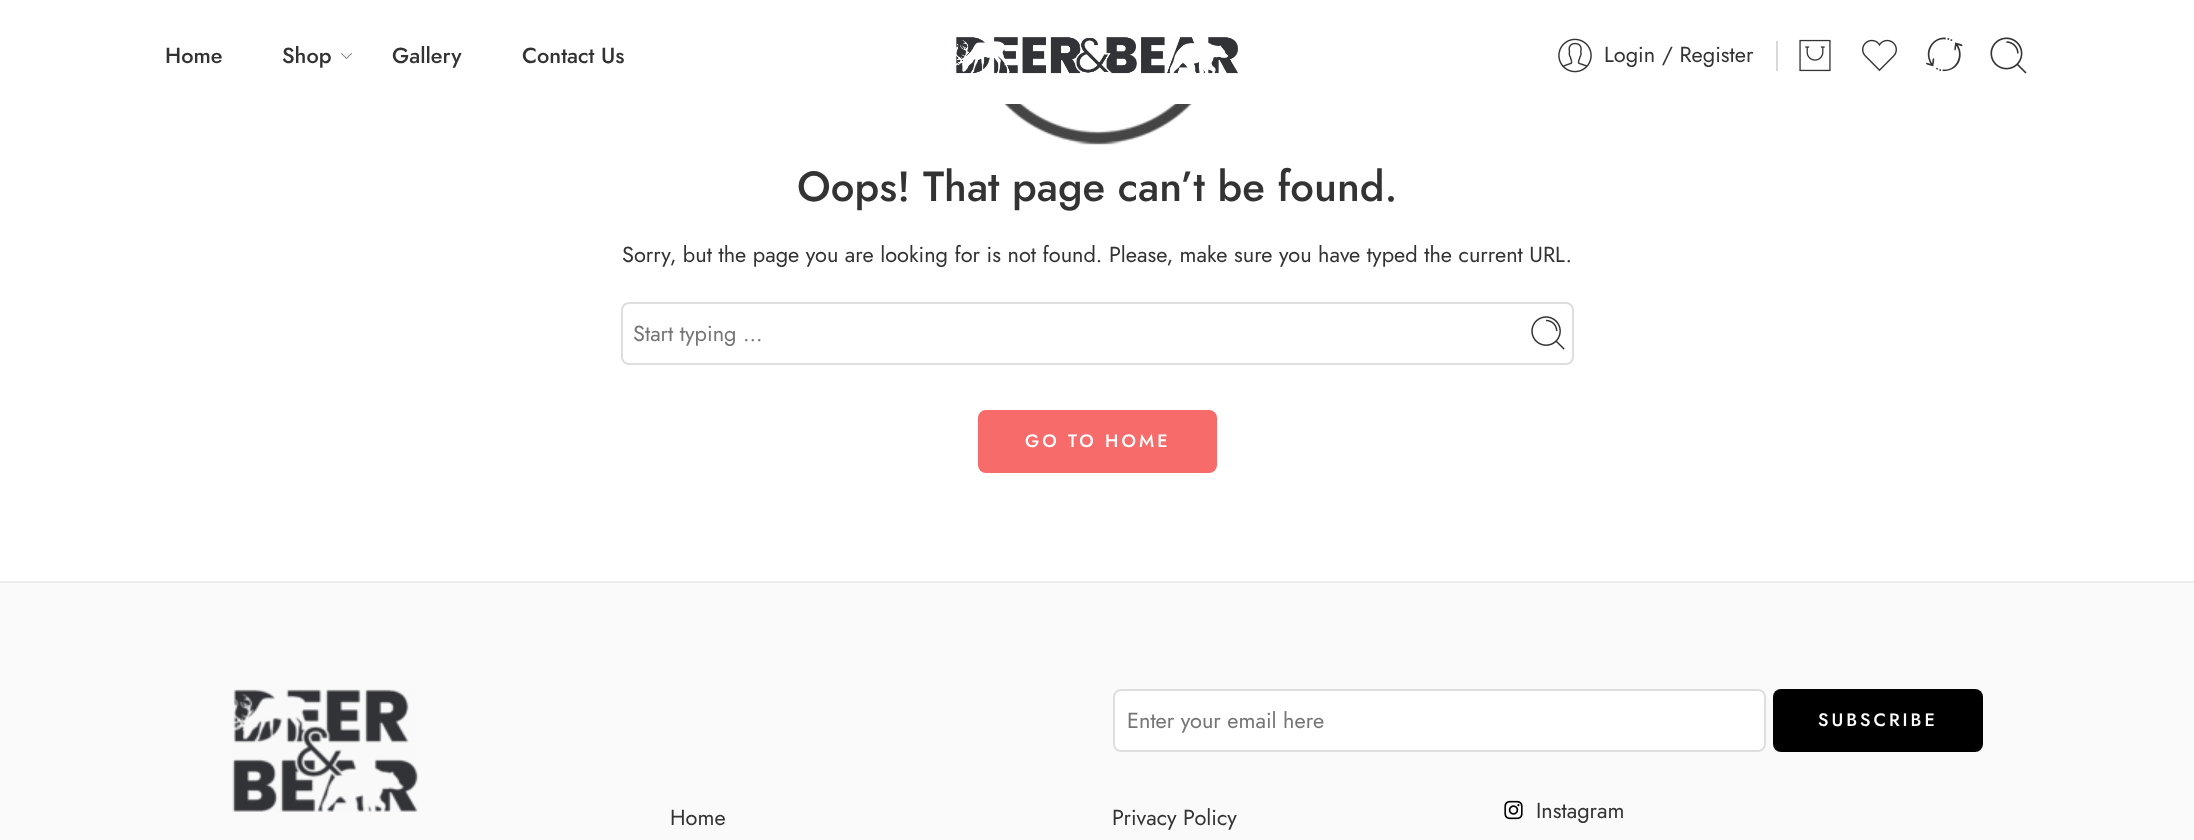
<!DOCTYPE html>
<meta charset="utf-8">
<style>body { margin: 0 } canvas { display: block }</style>
<canvas id="canvas" width="2194" height="840"></canvas>
<script type="module">
  const canvas = document.getElementById("canvas");
  const ctx = canvas.getContext("2d");
  ctx.miterLimit = 4;
  ctx.fontKerning = "normal";
  async function loadImage(src) {
    const img = new Image();
    img.src = src;
    await img.decode();
    return img;
  }

  ctx.fillStyle = "#ffffff";
  ctx.fillRect(0, 0, 2194, 840);
  ctx.font = "500 21.75px Jost";
  ctx.fillStyle = "#333333";
  ctx.fillText("Home", 165, 63);
  ctx.fillText("Shop", 282, 63);
  ctx.drawImage(await loadImage("img1.png"), 341, 53, 11, 6);
  ctx.fillText("Gallery", 392, 63);
  ctx.fillText("Contact Us", 522, 63);
  ctx.drawImage(await loadImage("img2.png"), 956, 37, 282, 37);
  ctx.drawImage(await loadImage("img3.png"), 1558, 38, 34, 35);
  ctx.font = "21.75px Jost";
  ctx.fillText("Login / Register", 1604, 62);
  ctx.fillStyle = "#d8d8d8";
  ctx.fillRect(1776, 41, 2, 30);
  ctx.drawImage(await loadImage("img4.png"), 1799, 39, 32, 33);
  ctx.drawImage(await loadImage("img5.png"), 1862, 39, 35, 33);
  ctx.drawImage(await loadImage("img6.png"), 1926, 37, 37, 35);
  ctx.drawImage(await loadImage("img7.png"), 1990, 37, 37, 37);
  ctx.drawImage(await loadImage("img8.png"), 1004, 104, 188, 41);
  ctx.font = "500 42px Jost";
  ctx.fillStyle = "#333333";
  ctx.fillText("Oops! That page can’t be found.", 797, 201);
  ctx.font = "21.75px Jost";
  ctx.fillText("Sorry, but the page you are looking for is not found. Please, make sure you have typed the current URL.", 622, 262);
  ctx.beginPath();
  ctx.roundRect(622, 303, 951, 61, 7);
  ctx.strokeStyle = "#dedede";
  ctx.lineWidth = 2;
  ctx.stroke();
  ctx.fillStyle = "#757575";
  ctx.fillText("Start typing ...", 633, 341);
  ctx.drawImage(await loadImage("img9.png"), 1531, 316, 34, 34);
  ctx.fillStyle = "#f76b6a";
  ctx.beginPath();
  ctx.roundRect(979, 411, 237, 61, 7);
  ctx.fill();
  ctx.strokeStyle = "#f76b6a";
  ctx.stroke();
  ctx.letterSpacing = "3px";
  ctx.font = "500 18px Jost";
  ctx.fillStyle = "#ffffff";
  ctx.fillText("GO TO HOME", 1025, 447);
  ctx.fillStyle = "#fafafa";
  ctx.fillRect(0, 583, 2194, 257);
  ctx.fillStyle = "#ececec";
  ctx.fillRect(0, 581, 2194, 2);
  ctx.drawImage(await loadImage("img10.png"), 232, 689, 187, 123);
  ctx.letterSpacing = "0px";
  ctx.font = "21.75px Jost";
  ctx.fillStyle = "#333333";
  ctx.fillText("Home", 670, 825);
  ctx.fillStyle = "#ffffff";
  ctx.beginPath();
  ctx.roundRect(1114, 690, 651, 61, 7);
  ctx.fill();
  ctx.strokeStyle = "#dedede";
  ctx.stroke();
  ctx.fillStyle = "#757575";
  ctx.fillText("Enter your email here", 1127, 728);
  ctx.fillStyle = "#000000";
  ctx.beginPath();
  ctx.roundRect(1773, 689, 210, 63, 8);
  ctx.fill();
  ctx.letterSpacing = "3px";
  ctx.font = "500 18px Jost";
  ctx.fillStyle = "#ffffff";
  ctx.fillText("SUBSCRIBE", 1818, 726);
  ctx.letterSpacing = "0px";
  ctx.font = "21.75px Jost";
  ctx.fillStyle = "#333333";
  ctx.fillText("Privacy Policy", 1112, 825);
  ctx.drawImage(await loadImage("img11.png"), 1504, 800, 19, 20);
  ctx.fillText("Instagram", 1536, 818);
</script>
